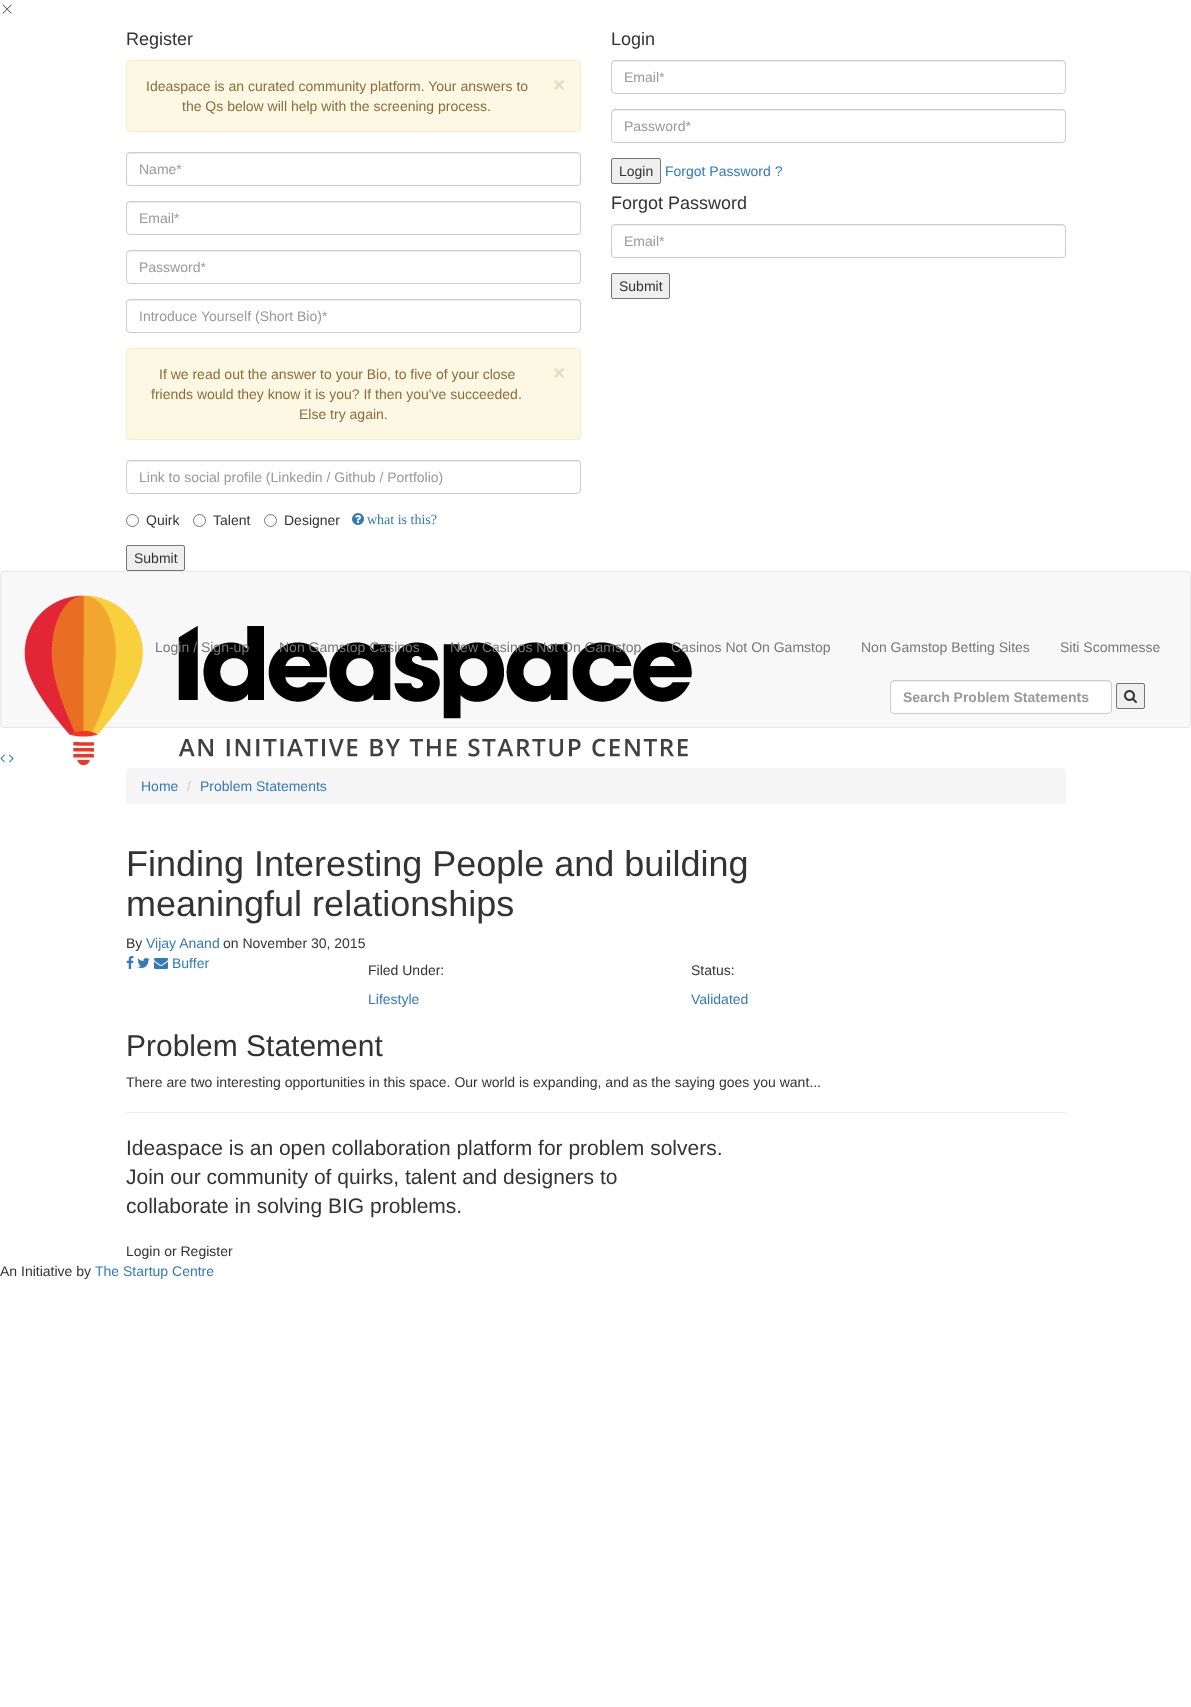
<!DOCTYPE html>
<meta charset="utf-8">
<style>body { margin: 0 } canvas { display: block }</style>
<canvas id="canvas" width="1191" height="1707"></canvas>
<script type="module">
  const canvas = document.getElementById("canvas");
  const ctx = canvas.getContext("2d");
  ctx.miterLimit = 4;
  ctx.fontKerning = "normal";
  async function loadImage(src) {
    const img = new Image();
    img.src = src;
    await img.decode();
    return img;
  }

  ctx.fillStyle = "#ffffff";
  ctx.fillRect(0, 0, 1191, 1707);
  ctx.drawImage(await loadImage("img1.png"), 2, 4, 10, 10);
  ctx.font = "18px Liberation Sans";
  ctx.fillStyle = "#333333";
  ctx.fillText("Register", 126, 45);
  ctx.fillStyle = "#fcf8e3";
  ctx.beginPath();
  ctx.roundRect(126.5, 60.5, 454, 71, 3.5);
  ctx.fill();
  ctx.strokeStyle = "#faebcc";
  ctx.stroke();
  ctx.font = "14px Liberation Sans";
  ctx.fillStyle = "#8a6d3b";
  ctx.fillText("Ideaspace is an curated community platform. Your answers to", 146, 91);
  ctx.font = "bold 21px Liberation Sans";
  ctx.fillStyle = "#e5dcc1";
  ctx.fillText("×", 553, 92);
  ctx.font = "14px Liberation Sans";
  ctx.fillStyle = "#8a6d3b";
  ctx.fillText("the Qs below will help with the screening process.", 182, 111);
  ctx.fillStyle = "#ececec";
  ctx.beginPath();
  ctx.moveTo(130, 154);
  ctx.lineTo(577, 154);
  ctx.bezierCurveTo(579, 154, 580, 155, 580, 157);
  ctx.lineTo(580, 155);
  ctx.lineTo(578, 153);
  ctx.lineTo(129, 153);
  ctx.bezierCurveTo(127, 154, 127, 155, 127, 157);
  ctx.bezierCurveTo(127, 155, 128, 154, 130, 154);
  ctx.closePath();
  ctx.fill();
  ctx.beginPath();
  ctx.roundRect(126.5, 152.5, 454, 33, 3.5);
  ctx.strokeStyle = "#cccccc";
  ctx.stroke();
  ctx.fillStyle = "#999999";
  ctx.fillText("Name*", 139, 174);
  ctx.fillStyle = "#ececec";
  ctx.beginPath();
  ctx.moveTo(130, 203);
  ctx.lineTo(577, 203);
  ctx.bezierCurveTo(579, 203, 580, 204, 580, 206);
  ctx.lineTo(580, 204);
  ctx.lineTo(578, 202);
  ctx.lineTo(129, 202);
  ctx.bezierCurveTo(127, 203, 127, 204, 127, 206);
  ctx.bezierCurveTo(127, 204, 128, 203, 130, 203);
  ctx.closePath();
  ctx.fill();
  ctx.beginPath();
  ctx.roundRect(126.5, 201.5, 454, 33, 3.5);
  ctx.stroke();
  ctx.fillStyle = "#999999";
  ctx.fillText("Email*", 139, 223);
  ctx.fillStyle = "#ececec";
  ctx.beginPath();
  ctx.moveTo(130, 252);
  ctx.lineTo(577, 252);
  ctx.bezierCurveTo(579, 252, 580, 253, 580, 255);
  ctx.lineTo(580, 253);
  ctx.lineTo(578, 251);
  ctx.lineTo(129, 251);
  ctx.bezierCurveTo(127, 252, 127, 253, 127, 255);
  ctx.bezierCurveTo(127, 253, 128, 252, 130, 252);
  ctx.closePath();
  ctx.fill();
  ctx.beginPath();
  ctx.roundRect(126.5, 250.5, 454, 33, 3.5);
  ctx.stroke();
  ctx.fillStyle = "#999999";
  ctx.fillText("Password*", 139, 272);
  ctx.fillStyle = "#ececec";
  ctx.beginPath();
  ctx.moveTo(130, 301);
  ctx.lineTo(577, 301);
  ctx.bezierCurveTo(579, 301, 580, 302, 580, 304);
  ctx.lineTo(580, 302);
  ctx.lineTo(578, 300);
  ctx.lineTo(129, 300);
  ctx.bezierCurveTo(127, 301, 127, 302, 127, 304);
  ctx.bezierCurveTo(127, 302, 128, 301, 130, 301);
  ctx.closePath();
  ctx.fill();
  ctx.beginPath();
  ctx.roundRect(126.5, 299.5, 454, 33, 3.5);
  ctx.stroke();
  ctx.fillStyle = "#999999";
  ctx.fillText("Introduce Yourself (Short Bio)*", 139, 321);
  ctx.fillStyle = "#fcf8e3";
  ctx.beginPath();
  ctx.roundRect(126.5, 348.5, 454, 91, 3.5);
  ctx.fill();
  ctx.strokeStyle = "#faebcc";
  ctx.stroke();
  ctx.fillStyle = "#8a6d3b";
  ctx.fillText("If we read out the answer to your Bio, to five of your close", 159, 379);
  ctx.font = "bold 21px Liberation Sans";
  ctx.fillStyle = "#e5dcc1";
  ctx.fillText("×", 553, 380);
  ctx.font = "14px Liberation Sans";
  ctx.fillStyle = "#8a6d3b";
  ctx.fillText("friends would they know it is you? If then you've succeeded.", 151, 399);
  ctx.fillText("Else try again.", 299, 419);
  ctx.fillStyle = "#ececec";
  ctx.beginPath();
  ctx.moveTo(130, 462);
  ctx.lineTo(577, 462);
  ctx.bezierCurveTo(579, 462, 580, 463, 580, 465);
  ctx.lineTo(580, 463);
  ctx.lineTo(578, 461);
  ctx.lineTo(129, 461);
  ctx.bezierCurveTo(127, 462, 127, 463, 127, 465);
  ctx.bezierCurveTo(127, 463, 128, 462, 130, 462);
  ctx.closePath();
  ctx.fill();
  ctx.beginPath();
  ctx.roundRect(126.5, 460.5, 454, 33, 3.5);
  ctx.strokeStyle = "#cccccc";
  ctx.stroke();
  ctx.fillStyle = "#999999";
  ctx.fillText("Link to social profile (Linkedin / Github / Portfolio)", 139, 482);
  ctx.beginPath();
  ctx.arc(132.5, 520.5, 6, 0, Math.PI * 2);
  ctx.strokeStyle = "#767676";
  ctx.stroke();
  ctx.fillStyle = "#333333";
  ctx.fillText("Quirk", 146, 525);
  ctx.beginPath();
  ctx.arc(199.5, 520.5, 6, 0, Math.PI * 2);
  ctx.stroke();
  ctx.fillText("Talent", 213, 525);
  ctx.beginPath();
  ctx.arc(270.5, 520.5, 6, 0, Math.PI * 2);
  ctx.stroke();
  ctx.fillText("Designer", 284, 525);
  ctx.drawImage(await loadImage("img2.png"), 352, 513, 12, 12);
  ctx.font = "14px Liberation Serif";
  ctx.fillStyle = "#337ab7";
  ctx.fillText("what is this?", 367, 524);
  ctx.fillStyle = "#efefef";
  ctx.beginPath();
  ctx.roundRect(126.5, 545.5, 58, 25, 1.5);
  ctx.fill();
  ctx.stroke();
  ctx.font = "14px Liberation Sans";
  ctx.fillStyle = "#333333";
  ctx.fillText("Submit", 134, 563);
  ctx.font = "18px Liberation Sans";
  ctx.fillText("Login", 611, 45);
  ctx.fillStyle = "#ececec";
  ctx.beginPath();
  ctx.moveTo(615, 62);
  ctx.lineTo(1062, 62);
  ctx.bezierCurveTo(1064, 62, 1065, 63, 1065, 65);
  ctx.lineTo(1065, 63);
  ctx.lineTo(1063, 61);
  ctx.lineTo(614, 61);
  ctx.bezierCurveTo(612, 62, 612, 63, 612, 65);
  ctx.bezierCurveTo(612, 63, 613, 62, 615, 62);
  ctx.closePath();
  ctx.fill();
  ctx.beginPath();
  ctx.roundRect(611.5, 60.5, 454, 33, 3.5);
  ctx.strokeStyle = "#cccccc";
  ctx.stroke();
  ctx.font = "14px Liberation Sans";
  ctx.fillStyle = "#999999";
  ctx.fillText("Email*", 624, 82);
  ctx.fillStyle = "#ececec";
  ctx.beginPath();
  ctx.moveTo(615, 111);
  ctx.lineTo(1062, 111);
  ctx.bezierCurveTo(1064, 111, 1065, 112, 1065, 114);
  ctx.lineTo(1065, 112);
  ctx.lineTo(1063, 110);
  ctx.lineTo(614, 110);
  ctx.bezierCurveTo(612, 111, 612, 112, 612, 114);
  ctx.bezierCurveTo(612, 112, 613, 111, 615, 111);
  ctx.closePath();
  ctx.fill();
  ctx.beginPath();
  ctx.roundRect(611.5, 109.5, 454, 33, 3.5);
  ctx.stroke();
  ctx.fillStyle = "#999999";
  ctx.fillText("Password*", 624, 131);
  ctx.fillStyle = "#efefef";
  ctx.beginPath();
  ctx.roundRect(611.5, 158.5, 49, 25, 1.5);
  ctx.fill();
  ctx.strokeStyle = "#767676";
  ctx.stroke();
  ctx.fillStyle = "#333333";
  ctx.fillText("Login", 619, 176);
  ctx.fillStyle = "#337ab7";
  ctx.fillText("Forgot Password ?", 665, 176);
  ctx.font = "18px Liberation Sans";
  ctx.fillStyle = "#333333";
  ctx.fillText("Forgot Password", 611, 209);
  ctx.fillStyle = "#ececec";
  ctx.beginPath();
  ctx.moveTo(615, 226);
  ctx.lineTo(1062, 226);
  ctx.bezierCurveTo(1064, 226, 1065, 227, 1065, 229);
  ctx.bezierCurveTo(1065, 227, 1065, 226, 1063, 225);
  ctx.lineTo(614, 225);
  ctx.lineTo(612, 227);
  ctx.lineTo(612, 229);
  ctx.bezierCurveTo(612, 227, 613, 226, 615, 226);
  ctx.closePath();
  ctx.fill();
  ctx.beginPath();
  ctx.roundRect(611.5, 224.5, 454, 33, 3.5);
  ctx.strokeStyle = "#cccccc";
  ctx.stroke();
  ctx.font = "14px Liberation Sans";
  ctx.fillStyle = "#999999";
  ctx.fillText("Email*", 624, 246);
  ctx.fillStyle = "#efefef";
  ctx.beginPath();
  ctx.roundRect(611.5, 273.5, 58, 25, 1.5);
  ctx.fill();
  ctx.strokeStyle = "#767676";
  ctx.stroke();
  ctx.fillStyle = "#333333";
  ctx.fillText("Submit", 619, 291);
  ctx.fillStyle = "#f8f8f8";
  ctx.beginPath();
  ctx.roundRect(0.5, 571.5, 1190, 156, 3.5);
  ctx.fill();
  ctx.strokeStyle = "#e7e7e7";
  ctx.stroke();
  ctx.drawImage(await loadImage("img3.png"), 24, 595, 668, 170);
  ctx.fillStyle = "#777777";
  ctx.fillText("Login / Sign-up", 155, 652);
  ctx.fillText("Non Gamstop Casinos", 279, 652);
  ctx.fillText("New Casinos Not On Gamstop", 450, 652);
  ctx.fillText("Casinos Not On Gamstop", 671, 652);
  ctx.fillText("Non Gamstop Betting Sites", 861, 652);
  ctx.fillText("Siti Scommesse", 1060, 652);
  ctx.fillStyle = "#ffffff";
  ctx.beginPath();
  ctx.roundRect(890, 680, 222, 34, 4);
  ctx.fill();
  ctx.fillStyle = "#ececec";
  ctx.beginPath();
  ctx.moveTo(894, 682);
  ctx.lineTo(1108, 682);
  ctx.bezierCurveTo(1110, 682, 1111, 683, 1111, 685);
  ctx.lineTo(1111, 684);
  ctx.bezierCurveTo(1111, 682, 1110, 681, 1108, 681);
  ctx.lineTo(894, 681);
  ctx.bezierCurveTo(892, 681, 891, 682, 891, 684);
  ctx.lineTo(891, 685);
  ctx.bezierCurveTo(891, 683, 892, 682, 894, 682);
  ctx.closePath();
  ctx.fill();
  ctx.beginPath();
  ctx.roundRect(890.5, 680.5, 221, 33, 3.5);
  ctx.strokeStyle = "#cccccc";
  ctx.stroke();
  ctx.font = "bold 14px Liberation Sans";
  ctx.fillStyle = "#999999";
  ctx.fillText("Search Problem Statements", 903, 702);
  ctx.fillStyle = "#efefef";
  ctx.beginPath();
  ctx.roundRect(1116.5, 683.5, 28, 25, 1.5);
  ctx.fill();
  ctx.strokeStyle = "#767676";
  ctx.stroke();
  ctx.drawImage(await loadImage("img4.png"), 1124, 690, 13, 13);
  ctx.drawImage(await loadImage("img5.png"), 0, 754, 5, 9);
  ctx.drawImage(await loadImage("img6.png"), 9, 754, 5, 9);
  ctx.fillStyle = "#f5f5f5";
  ctx.beginPath();
  ctx.roundRect(126, 768, 940, 36, 4);
  ctx.fill();
  ctx.font = "14px Liberation Sans";
  ctx.fillStyle = "#337ab7";
  ctx.fillText("Home", 141, 791);
  ctx.fillStyle = "#cccccc";
  ctx.fillText("/", 187, 791);
  ctx.fillStyle = "#337ab7";
  ctx.fillText("Problem Statements", 200, 791);
  ctx.font = "36px Liberation Sans";
  ctx.fillStyle = "#333333";
  ctx.fillText("Finding Interesting People and building", 126, 876);
  ctx.fillText("meaningful relationships", 126, 916);
  ctx.font = "14px Liberation Sans";
  ctx.fillText("By", 126, 948);
  ctx.fillStyle = "#337ab7";
  ctx.fillText("Vijay Anand", 146, 948);
  ctx.fillStyle = "#333333";
  ctx.fillText("on November 30, 2015", 223, 948);
  ctx.drawImage(await loadImage("img7.png"), 126, 956, 8, 13);
  ctx.drawImage(await loadImage("img8.png"), 137, 958, 13, 10);
  ctx.drawImage(await loadImage("img9.png"), 154, 958, 14, 11);
  ctx.fillStyle = "#337ab7";
  ctx.fillText("Buffer", 172, 968);
  ctx.fillStyle = "#333333";
  ctx.fillText("Filed Under:", 368, 975);
  ctx.fillStyle = "#337ab7";
  ctx.fillText("Lifestyle", 368, 1004);
  ctx.fillStyle = "#333333";
  ctx.fillText("Status:", 691, 975);
  ctx.fillStyle = "#337ab7";
  ctx.fillText("Validated", 691, 1004);
  ctx.font = "30px Liberation Sans";
  ctx.fillStyle = "#333333";
  ctx.fillText("Problem Statement", 126, 1056);
  ctx.font = "14px Liberation Sans";
  ctx.fillText("There are two interesting opportunities in this space. Our world is expanding, and as the saying goes you want...", 126, 1087);
  ctx.fillStyle = "#eeeeee";
  ctx.fillRect(126, 1112, 940, 1);
  ctx.font = "21px Liberation Sans";
  ctx.fillStyle = "#333333";
  ctx.fillText("Ideaspace is an open collaboration platform for problem solvers.", 126, 1155);
  ctx.fillText("Join our community of quirks, talent and designers to", 126, 1184);
  ctx.fillText("collaborate in solving BIG problems.", 126, 1213);
  ctx.font = "14px Liberation Sans";
  ctx.fillText("Login or Register", 126, 1256);
  ctx.fillText("An Initiative by", 0, 1276);
  ctx.fillStyle = "#337ab7";
  ctx.fillText("The Startup Centre", 95, 1276);
</script>
